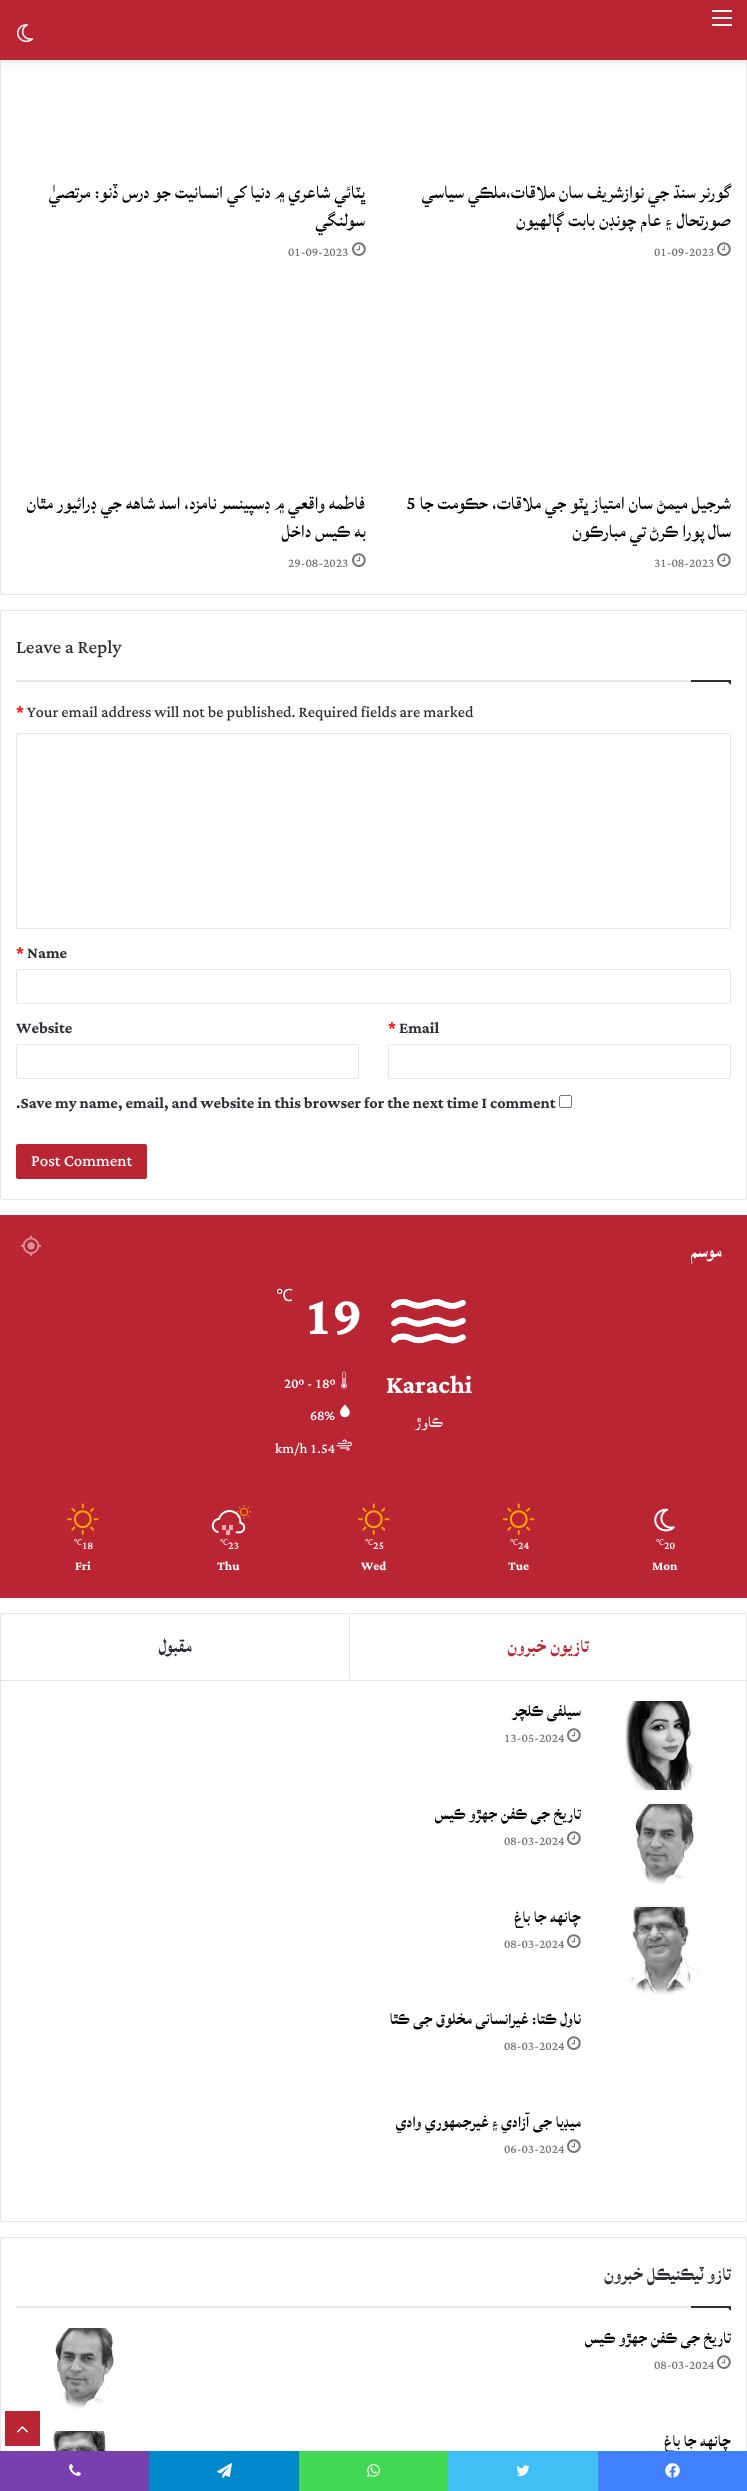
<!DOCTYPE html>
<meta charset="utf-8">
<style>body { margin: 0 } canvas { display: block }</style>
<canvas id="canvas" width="747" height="2491"></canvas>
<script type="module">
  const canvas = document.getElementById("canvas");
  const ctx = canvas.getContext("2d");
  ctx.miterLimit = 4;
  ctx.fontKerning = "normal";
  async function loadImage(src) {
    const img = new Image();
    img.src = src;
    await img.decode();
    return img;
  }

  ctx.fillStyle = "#ffffff";
  ctx.fillRect(0, 0, 747, 2491);
  ctx.beginPath();
  ctx.roundRect(0.5, -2.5, 746, 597, 1.5);
  ctx.strokeStyle = "#e6e6e6";
  ctx.stroke();
  ctx.fillStyle = "rgba(0, 0, 0, 0.1)";
  ctx.filter = "blur(3.5px)";
  ctx.beginPath();
  ctx.rect(0, 3, 747, 60);
  ctx.fill();
  ctx.filter = "none";
  ctx.fillStyle = "#b92533";
  ctx.fillRect(0, 0, 747, 60);
  ctx.fillStyle = "#fcf4f5";
  ctx.fillRect(712, 17, 20, 2);
  ctx.fillRect(712, 10, 20, 2);
  ctx.fillRect(712, 24, 20, 2);
  ctx.drawImage(await loadImage("img1.png"), 17, 24, 17, 19);
  ctx.direction = "rtl";
  ctx.font = "500 24px Lateef";
  ctx.fillStyle = "#000000";
  ctx.fillText("گورنر سنڌ جي نوازشريف سان ملاقات،ملڪي سياسي", 731, 198);
  ctx.wordSpacing = "0.5px";
  ctx.fillText("صورتحال ۽ عام چونڊن بابت ڳالهيون", 731, 226);
  ctx.drawImage(await loadImage("img2.png"), 717, 242, 14, 14);
  ctx.wordSpacing = "0px";
  ctx.direction = "ltr";
  ctx.font = "16px Lateef";
  ctx.fillStyle = "#767676";
  ctx.fillText("01-09-2023", 654, 256);
  ctx.direction = "rtl";
  ctx.font = "500 24px Lateef";
  ctx.fillStyle = "#000000";
  ctx.fillText("ڀٽائي شاعري ۾ دنيا کي انسانيت جو درس ڏنو: مرتصيٰ", 365, 198);
  ctx.fillText("سولنگي", 365, 226);
  ctx.drawImage(await loadImage("img2.png"), 352, 242, 14, 14);
  ctx.direction = "ltr";
  ctx.font = "16px Lateef";
  ctx.fillStyle = "#767676";
  ctx.fillText("01-09-2023", 288, 256);
  ctx.direction = "rtl";
  ctx.font = "500 24px Lateef";
  ctx.fillStyle = "#000000";
  ctx.fillText("شرجيل ميمڻ سان امتياز ڀٽو جي ملاقات، حڪومت جا", 731, 509);
  ctx.direction = "ltr";
  ctx.fillText("5", 406, 509);
  ctx.direction = "rtl";
  ctx.fillText("سال پورا ڪرڻ تي مبارڪون", 731, 537);
  ctx.drawImage(await loadImage("img2.png"), 717, 553, 14, 14);
  ctx.direction = "ltr";
  ctx.font = "16px Lateef";
  ctx.fillStyle = "#767676";
  ctx.fillText("31-08-2023", 654, 567);
  ctx.direction = "rtl";
  ctx.font = "500 24px Lateef";
  ctx.fillStyle = "#000000";
  ctx.fillText("فاطمه واقعي ۾ ڊسپينسر نامزد، اسد شاهه جي ڊرائيور مٿان", 365, 509);
  ctx.fillText("به ڪيس داخل", 366, 537);
  ctx.drawImage(await loadImage("img2.png"), 352, 553, 14, 14);
  ctx.direction = "ltr";
  ctx.font = "16px Lateef";
  ctx.fillStyle = "#767676";
  ctx.fillText("29-08-2023", 288, 567);
  ctx.beginPath();
  ctx.roundRect(0.5, 610.5, 746, 589, 1.5);
  ctx.stroke();
  ctx.fillStyle = "#e6e6e6";
  ctx.fillRect(16, 680, 675, 2);
  ctx.font = "24px Lateef";
  ctx.fillStyle = "#2c2f34";
  ctx.fillText("Leave a Reply", 16, 653);
  ctx.beginPath();
  ctx.moveTo(726, 680);
  ctx.lineTo(731, 680);
  ctx.lineTo(731, 685);
  ctx.closePath();
  ctx.fill();
  ctx.fillRect(691, 680, 40, 2);
  ctx.font = "20px Lateef";
  ctx.fillText("Your email address will not be published. Required fields are marked", 27, 717);
  ctx.font = "bold 20px Lateef";
  ctx.fillStyle = "#ff0000";
  ctx.fillText("*", 16, 717);
  ctx.beginPath();
  ctx.roundRect(16.5, 733.5, 714, 195, 1.5);
  ctx.stroke();
  ctx.fillStyle = "#2c2f34";
  ctx.fillText("Name", 27, 958);
  ctx.fillStyle = "#ff0000";
  ctx.fillText("*", 16, 958);
  ctx.beginPath();
  ctx.roundRect(16.5, 969.5, 714, 34, 1.5);
  ctx.stroke();
  ctx.fillStyle = "#2c2f34";
  ctx.fillText("Email", 399, 1033);
  ctx.fillStyle = "#ff0000";
  ctx.fillText("*", 388, 1033);
  ctx.beginPath();
  ctx.roundRect(388.5, 1044.5, 342, 34, 1.5);
  ctx.stroke();
  ctx.fillStyle = "#2c2f34";
  ctx.fillText("Website", 16, 1033);
  ctx.beginPath();
  ctx.roundRect(16.5, 1044.5, 342, 34, 1.5);
  ctx.stroke();
  ctx.beginPath();
  ctx.roundRect(559.5, 1095.5, 12, 12, 1.5);
  ctx.strokeStyle = "#767676";
  ctx.stroke();
  ctx.fillText(".Save my name, email, and website in this browser for the next time I comment", 16, 1108);
  ctx.fillStyle = "#b92533";
  ctx.beginPath();
  ctx.roundRect(16, 1144, 131, 35, 2);
  ctx.fill();
  ctx.font = "21px Lateef";
  ctx.fillStyle = "#ffffff";
  ctx.fillText("Post Comment", 31, 1166);
  ctx.fillStyle = "#b92533";
  ctx.fillRect(0, 1215, 747, 383);
  ctx.drawImage(await loadImage("img3.png"), 20, 1235, 22, 21);
  ctx.direction = "rtl";
  ctx.font = "bold 24px Lateef";
  ctx.fillStyle = "#ffffff";
  ctx.fillText("موسم", 722, 1257);
  ctx.drawImage(await loadImage("img4.png"), 391, 1299, 75, 45);
  ctx.drawImage(await loadImage("img5.png"), 391, 1299, 75, 45);
  ctx.direction = "ltr";
  ctx.font = "bold 32px Lateef";
  ctx.fillText("Karachi", 386, 1393);
  ctx.direction = "rtl";
  ctx.font = "20px Lateef";
  ctx.fillText("ڪاوڙ", 443, 1427);
  ctx.direction = "ltr";
  ctx.font = "17px Noto Sans";
  ctx.fillText("℃", 276, 1301);
  ctx.font = "bold 70px Lateef";
  ctx.fillText("19", 304, 1334);
  ctx.drawImage(await loadImage("img6.png"), 341, 1371, 6, 18);
  ctx.font = "18px Lateef";
  ctx.fillText("20º - 18º", 284, 1388);
  ctx.drawImage(await loadImage("img7.png"), 340, 1404, 10, 14);
  ctx.fillText("68%", 310, 1420);
  ctx.drawImage(await loadImage("img8.png"), 336, 1439, 16, 12);
  ctx.fillText("km/h 1.54", 275, 1453);
  ctx.drawImage(await loadImage("img9.png"), 654, 1508, 21, 24);
  ctx.font = "14px Lateef";
  ctx.fillText("20", 664, 1549);
  ctx.font = "8px Noto Sans";
  ctx.fillText("℃", 656, 1545);
  ctx.font = "bold 16px Lateef";
  ctx.fillText("Mon", 652, 1570);
  ctx.drawImage(await loadImage("img10.png"), 503, 1503, 32, 32);
  ctx.font = "14px Lateef";
  ctx.fillText("24", 518, 1549);
  ctx.font = "8px Noto Sans";
  ctx.fillText("℃", 510, 1545);
  ctx.font = "bold 16px Lateef";
  ctx.fillText("Tue", 508, 1570);
  ctx.drawImage(await loadImage("img10.png"), 358, 1503, 32, 32);
  ctx.font = "14px Lateef";
  ctx.fillText("25", 373, 1549);
  ctx.font = "8px Noto Sans";
  ctx.fillText("℃", 365, 1545);
  ctx.font = "bold 16px Lateef";
  ctx.fillText("Wed", 361, 1570);
  ctx.drawImage(await loadImage("img11.png"), 237, 1505, 14, 14);
  ctx.drawImage(await loadImage("img13.png"), 239, 1515, 1, 2);
  ctx.drawImage(await loadImage("img12.png"), 211, 1510, 35, 24);
  ctx.fillStyle = "#e3a8ad";
  ctx.fillRect(229, 1525, 4, 5);
  ctx.fillRect(222, 1525, 4, 5);
  ctx.fillRect(226, 1530, 4, 5);
  ctx.font = "14px Lateef";
  ctx.fillStyle = "#ffffff";
  ctx.fillText("23", 228, 1549);
  ctx.font = "8px Noto Sans";
  ctx.fillText("℃", 220, 1545);
  ctx.font = "bold 16px Lateef";
  ctx.fillText("Thu", 217, 1570);
  ctx.drawImage(await loadImage("img10.png"), 67, 1503, 32, 32);
  ctx.font = "14px Lateef";
  ctx.fillText("18", 82, 1549);
  ctx.font = "8px Noto Sans";
  ctx.fillText("℃", 74, 1545);
  ctx.font = "bold 16px Lateef";
  ctx.fillText("Fri", 75, 1570);
  ctx.beginPath();
  ctx.roundRect(0.5, 1613.5, 746, 608, 1.5);
  ctx.strokeStyle = "#e6e6e6";
  ctx.stroke();
  ctx.fillStyle = "#e6e6e6";
  ctx.fillRect(1, 1680, 745, 1);
  ctx.fillStyle = "#ffffff";
  ctx.fillRect(745, 1614, 1, 1);
  ctx.fillStyle = "#e6e6e6";
  ctx.beginPath();
  ctx.moveTo(349, 1680);
  ctx.lineTo(349, 1614);
  ctx.lineTo(350, 1614);
  ctx.lineTo(350, 1679);
  ctx.closePath();
  ctx.fill();
  ctx.direction = "rtl";
  ctx.font = "bold 24px Lateef";
  ctx.fillStyle = "#b92533";
  ctx.fillText("تازيون خبرون", 589, 1652);
  ctx.fillStyle = "#2c2f34";
  ctx.fillText("مقبول", 192, 1652);
  ctx.drawImage(await loadImage("img14.png"), 625, 1701, 70, 89);
  ctx.save();
  ctx.beginPath();
  ctx.rect(21, 1701, 560, 21);
  ctx.clip();
  ctx.font = "bold 21px Lateef";
  ctx.fillStyle = "#000000";
  ctx.fillText("سيلفي ڪلچر", 581, 1716);
  ctx.restore();
  ctx.drawImage(await loadImage("img2.png"), 567, 1728, 14, 14);
  ctx.direction = "ltr";
  ctx.font = "16px Lateef";
  ctx.fillStyle = "#767676";
  ctx.fillText("13-05-2024", 504, 1742);
  ctx.drawImage(await loadImage("img15.png"), 635, 1804, 60, 81);
  ctx.save();
  ctx.beginPath();
  ctx.rect(21, 1804, 560, 21);
  ctx.clip();
  ctx.direction = "rtl";
  ctx.font = "bold 21px Lateef";
  ctx.fillStyle = "#000000";
  ctx.fillText("تاريخ جي ڪفن جھڙو ڪيس", 581, 1819);
  ctx.restore();
  ctx.drawImage(await loadImage("img2.png"), 567, 1831, 14, 14);
  ctx.fillText("08-03-2024", 504, 1845);
  ctx.drawImage(await loadImage("img16.png"), 622, 1906, 80, 89);
  ctx.save();
  ctx.beginPath();
  ctx.rect(21, 1907, 560, 21);
  ctx.clip();
  ctx.direction = "rtl";
  ctx.font = "bold 21px Lateef";
  ctx.fillStyle = "#000000";
  ctx.fillText("چانهه جا باغ", 581, 1922);
  ctx.restore();
  ctx.drawImage(await loadImage("img2.png"), 567, 1934, 14, 14);
  ctx.fillText("08-03-2024", 504, 1948);
  ctx.save();
  ctx.beginPath();
  ctx.rect(21, 2009, 560, 21);
  ctx.clip();
  ctx.direction = "rtl";
  ctx.font = "bold 21px Lateef";
  ctx.fillStyle = "#000000";
  ctx.fillText("ناول ڪتا: غيرانساني مخلوق جي ڪٿا", 581, 2024);
  ctx.restore();
  ctx.drawImage(await loadImage("img2.png"), 567, 2036, 14, 14);
  ctx.fillText("08-03-2024", 504, 2050);
  ctx.save();
  ctx.beginPath();
  ctx.rect(21, 2112, 560, 21);
  ctx.clip();
  ctx.direction = "rtl";
  ctx.font = "bold 21px Lateef";
  ctx.fillStyle = "#000000";
  ctx.fillText("ميڊيا جي آزادي ۽ غيرجمھوري وادي", 581, 2127);
  ctx.restore();
  ctx.drawImage(await loadImage("img2.png"), 567, 2139, 14, 14);
  ctx.fillText("06-03-2024", 504, 2153);
  ctx.beginPath();
  ctx.roundRect(0.5, 2237.5, 746, 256, 1.5);
  ctx.stroke();
  ctx.fillStyle = "#e6e6e6";
  ctx.fillRect(16, 2306, 675, 2);
  ctx.direction = "rtl";
  ctx.font = "bold 24px Lateef";
  ctx.fillStyle = "#2c2f34";
  ctx.fillText("تازو ٽيڪنيڪل خبرون", 731, 2280);
  ctx.beginPath();
  ctx.moveTo(726, 2306);
  ctx.lineTo(731, 2306);
  ctx.lineTo(731, 2311);
  ctx.closePath();
  ctx.fill();
  ctx.fillRect(691, 2306, 40, 2);
  ctx.save();
  ctx.beginPath();
  ctx.rect(161, 2328, 570, 21);
  ctx.clip();
  ctx.font = "bold 21px Lateef";
  ctx.fillStyle = "#000000";
  ctx.fillText("تاريخ جي ڪفن جھڙو ڪيس", 731, 2343);
  ctx.restore();
  ctx.drawImage(await loadImage("img2.png"), 717, 2355, 14, 14);
  ctx.direction = "ltr";
  ctx.font = "16px Lateef";
  ctx.fillStyle = "#767676";
  ctx.fillText("08-03-2024", 654, 2369);
  ctx.drawImage(await loadImage("img15.png"), 55, 2328, 60, 81);
  ctx.direction = "rtl";
  ctx.font = "bold 21px Lateef";
  ctx.fillStyle = "#000000";
  ctx.fillText("چانهه جا باغ", 731, 2446);
  ctx.drawImage(await loadImage("img17.png"), 50, 2431, 59, 20);
  ctx.fillStyle = "#b92533";
  ctx.fillRect(5, 2411, 35, 35);
  ctx.drawImage(await loadImage("img18.png"), 16, 2426, 12, 7);
  ctx.fillStyle = "#4080ff";
  ctx.fillRect(598, 2451, 149, 40);
  ctx.drawImage(await loadImage("img19.png"), 665, 2463, 15, 15);
  ctx.fillStyle = "#40bff5";
  ctx.fillRect(448, 2451, 150, 40);
  ctx.drawImage(await loadImage("img20.png"), 516, 2465, 14, 11);
  ctx.fillStyle = "#43d854";
  ctx.fillRect(299, 2451, 149, 40);
  ctx.drawImage(await loadImage("img21.png"), 367, 2464, 13, 13);
  ctx.fillStyle = "#0088cc";
  ctx.fillRect(149, 2451, 150, 40);
  ctx.drawImage(await loadImage("img22.png"), 217, 2463, 15, 15);
  ctx.fillStyle = "#773ead";
  ctx.fillRect(0, 2451, 149, 40);
  ctx.drawImage(await loadImage("img23.png"), 69, 2464, 12, 12);
</script>
